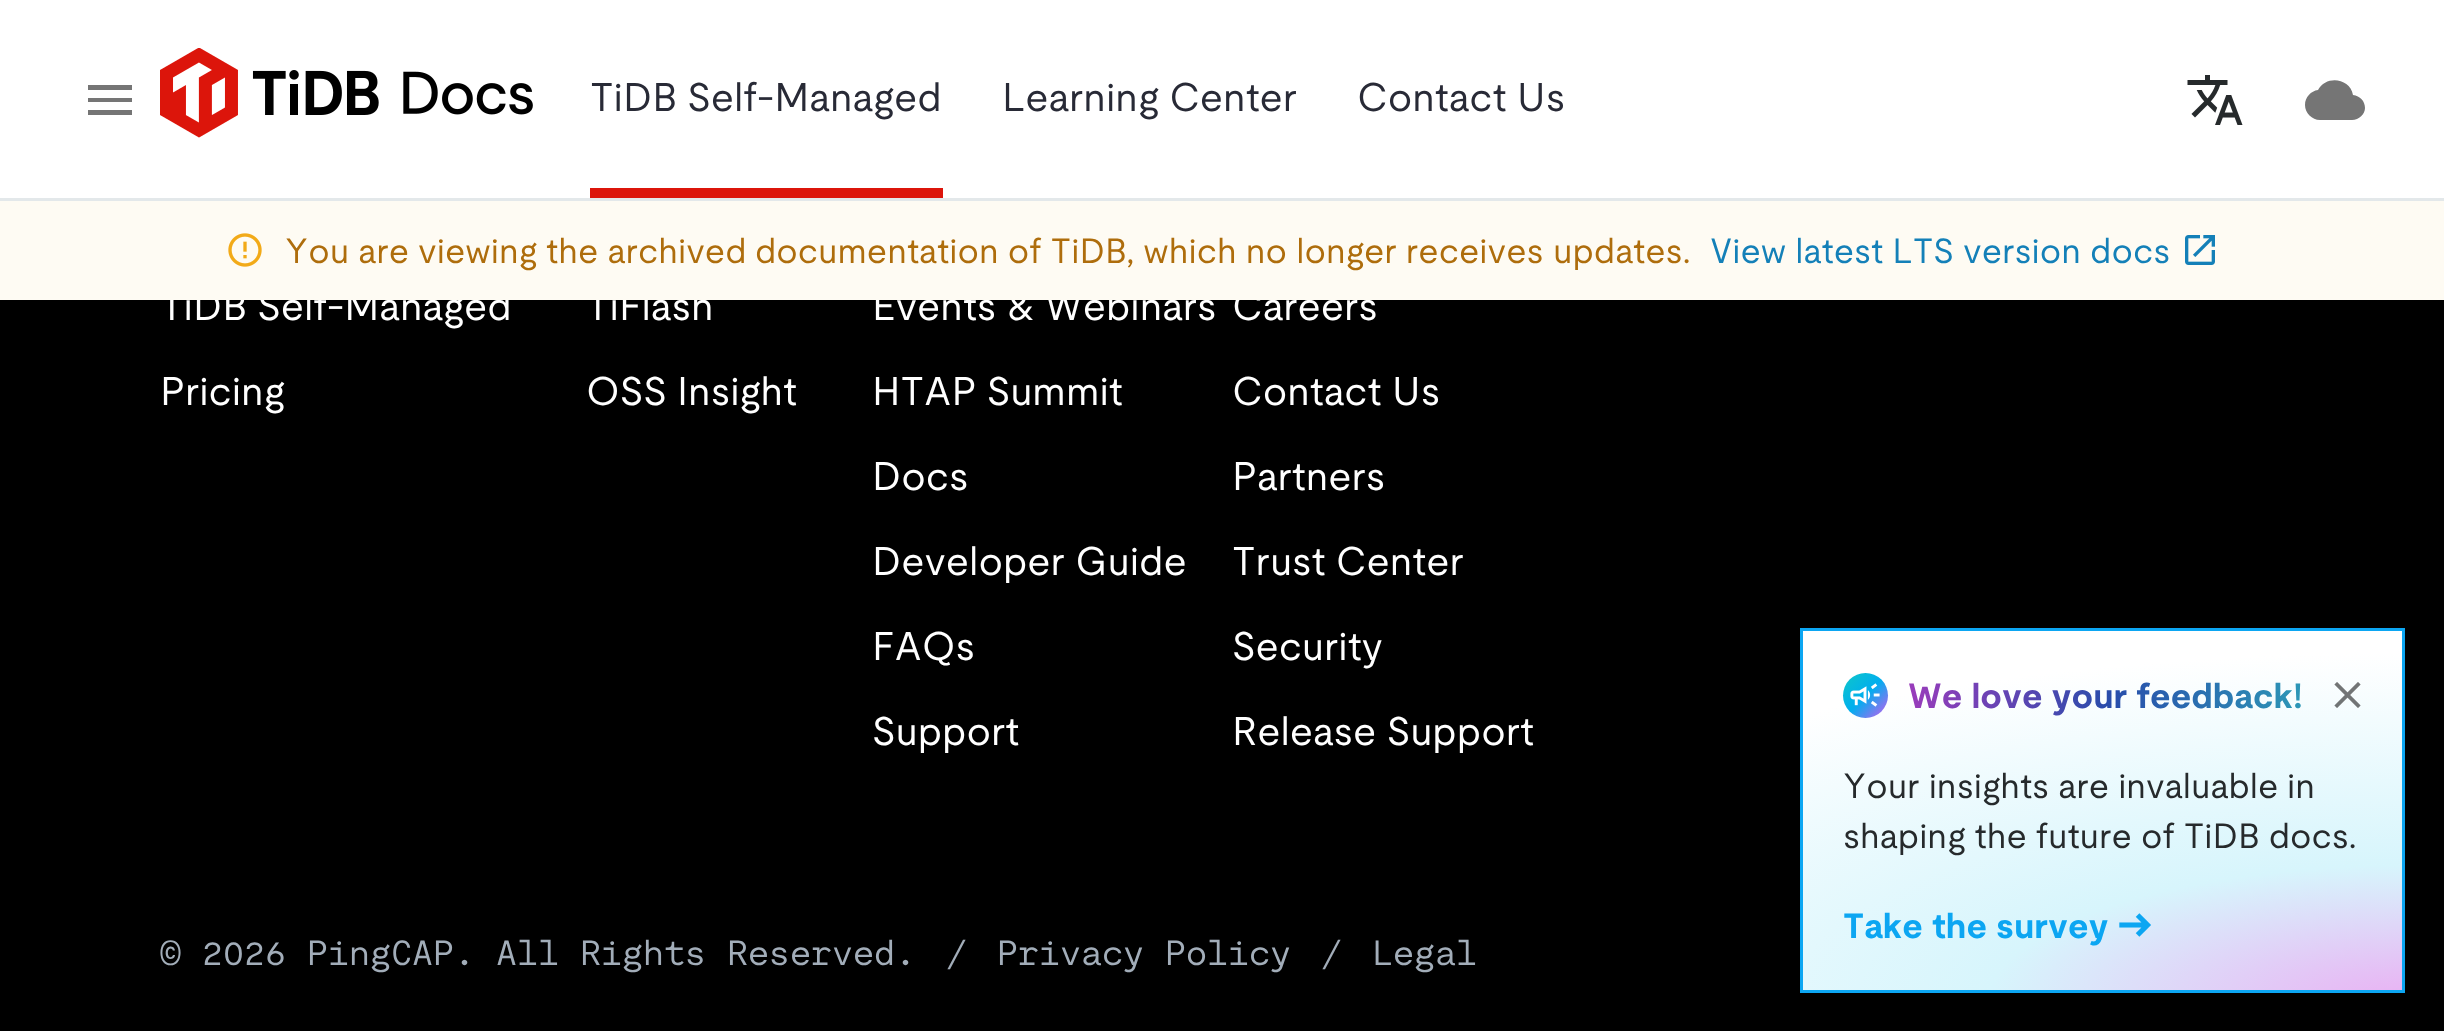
<!DOCTYPE html>
<meta charset="utf-8">
<style>body { margin: 0 } canvas { display: block }</style>
<canvas id="canvas" width="2444" height="1031"></canvas>
<script type="module">
  const canvas = document.getElementById("canvas");
  const ctx = canvas.getContext("2d");
  ctx.miterLimit = 4;
  ctx.fontKerning = "none";
  async function loadImage(src) {
    const img = new Image();
    img.src = src;
    await img.decode();
    return img;
  }
  let gradient;

  ctx.fillStyle = "#000000";
  ctx.fillRect(0, 0, 2444, 1031);
  ctx.fillStyle = "#ffffff";
  ctx.fillRect(0, 0, 2444, 198);
  ctx.fillStyle = "#e3e8ea";
  ctx.fillRect(0, 198, 2444, 3);
  ctx.fillStyle = "#757575";
  ctx.beginPath();
  ctx.moveTo(88, 115);
  ctx.lineTo(132, 115);
  ctx.lineTo(132, 110);
  ctx.lineTo(88, 110);
  ctx.closePath();
  ctx.moveTo(88, 102);
  ctx.lineTo(132, 102);
  ctx.lineTo(132, 98);
  ctx.lineTo(88, 98);
  ctx.closePath();
  ctx.moveTo(88, 85);
  ctx.lineTo(88, 90);
  ctx.lineTo(132, 90);
  ctx.lineTo(132, 85);
  ctx.closePath();
  ctx.fill();
  ctx.drawImage(await loadImage("img1.png"), 160, 48, 373, 90);
  ctx.fillStyle = "#dc150b";
  ctx.fillRect(590, 188, 353, 10);
  ctx.font = "40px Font";
  ctx.fillStyle = "#282a36";
  ctx.fillText("TiDB Self-Managed", 590, 111);
  ctx.fillText("Learning Center", 1002, 111);
  ctx.fillText("Contact Us", 1357, 111);
  ctx.drawImage(await loadImage("img2.png"), 2187, 75, 56, 50);
  ctx.fillStyle = "#757575";
  ctx.beginPath();
  ctx.moveTo(2353, 95);
  ctx.bezierCurveTo(2350, 78, 2326, 75, 2318, 90);
  ctx.bezierCurveTo(2311, 91, 2305, 97, 2305, 105);
  ctx.bezierCurveTo(2305, 113, 2312, 120, 2320, 120);
  ctx.lineTo(2352, 120);
  ctx.bezierCurveTo(2359, 120, 2365, 114, 2365, 108);
  ctx.bezierCurveTo(2365, 101, 2360, 96, 2353, 95);
  ctx.closePath();
  ctx.fill();
  ctx.fillStyle = "#ffffff";
  ctx.fillText("TiDB Self-Managed", 160, 320);
  ctx.fillText("TiFlash", 586, 320);
  ctx.fillText("Events & Webinars", 872, 320);
  ctx.fillText("Careers", 1232, 320);
  ctx.fillStyle = "#fefbf3";
  ctx.fillRect(0, 201, 2444, 99);
  ctx.drawImage(await loadImage("img3.png"), 228, 233, 34, 34);
  ctx.font = "35px Font";
  ctx.fillStyle = "#ae6d0c";
  ctx.fillText("You are viewing the archived", 285, 263);
  ctx.fillText("documentation of TiDB, which no longer receives", 755, 263);
  ctx.fillText("updates.", 1553, 263);
  ctx.fillStyle = "#1480b8";
  ctx.fillText("View latest LTS", 1710, 263);
  ctx.fillText("version docs", 1963, 263);
  ctx.drawImage(await loadImage("img4.png"), 2185, 235, 30, 30);
  ctx.font = "40px Font";
  ctx.fillStyle = "#ffffff";
  ctx.fillText("Pricing", 160, 405);
  ctx.fillText("OSS Insight", 586, 405);
  ctx.fillText("HTAP Summit", 872, 405);
  ctx.fillText("Docs", 872, 490);
  ctx.fillText("Developer Guide", 872, 575);
  ctx.fillText("FAQs", 872, 660);
  ctx.fillText("Support", 872, 745);
  ctx.fillText("Contact Us", 1232, 405);
  ctx.fillText("Partners", 1232, 490);
  ctx.fillText("Trust Center", 1232, 575);
  ctx.fillText("Security", 1232, 660);
  ctx.fillText("Release Support", 1232, 745);
  ctx.font = "35px 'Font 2'";
  ctx.fillStyle = "#a2adb9";
  ctx.fillText("© 2026 PingCAP. All Rights Reserved.", 160, 965);
  ctx.fillText("/", 946, 965);
  ctx.fillText("Privacy Policy", 997, 965);
  ctx.fillText("/", 1321, 965);
  ctx.fillText("Legal", 1372, 965);
  gradient = ctx.createRadialGradient(2413, 3126.69, 0, 2413, 3126.69, 1087);
  gradient.addColorStop(0, "#e9b0f3");
  gradient.addColorStop(0.39, "#d7f5fc");
  gradient.addColorStop(1, "#ffffff");
  ctx.fillStyle = gradient;
  ctx.beginPath();
  ctx.rect(1803, 631, 599, 359);
  ctx.save();
  ctx.clip();
  ctx.scale(1, 348 / 1087);
  ctx.fillRect(0, 0, 2444, 3221);
  ctx.restore();
  ctx.strokeStyle = "#0ca6f2";
  ctx.lineWidth = 3;
  ctx.strokeRect(1801.5, 629.5, 602, 362);
  gradient = ctx.createLinearGradient(1843, 673, 1888, 718);
  gradient.addColorStop(0, "#0fc7c7");
  gradient.addColorStop(0.5, "#00aeef");
  gradient.addColorStop(1, "#ca5af0");
  ctx.fillStyle = gradient;
  ctx.beginPath();
  ctx.arc(1865.5, 695.5, 22.5, 0, Math.PI * 2);
  ctx.fill();
  ctx.drawImage(await loadImage("img5.png"), 1850, 683, 30, 24);
  ctx.font = "bold 35px Font";
  gradient = ctx.createLinearGradient(1908, 695, 2313, 695);
  gradient.addColorStop(0, "#9a3cbb");
  gradient.addColorStop(0.5, "#284dab");
  gradient.addColorStop(1, "#2d9bb7");
  ctx.fillStyle = gradient;
  ctx.fillText("We love your feedback!", 1908, 708);
  ctx.drawImage(await loadImage("img6.png"), 2334, 682, 27, 26);
  ctx.font = "35px Font";
  ctx.fillStyle = "#262a2c";
  ctx.fillText("Your insights are invaluable", 1843, 798);
  ctx.fillText("in", 2287, 798);
  ctx.fillText("shaping the future of TiDB docs.", 1843, 848);
  ctx.font = "bold 35px Font";
  ctx.fillStyle = "#0ca6f2";
  ctx.fillText("Take the survey", 1843, 938);
  ctx.drawImage(await loadImage("img7.png"), 2119, 913, 32, 24);
</script>
